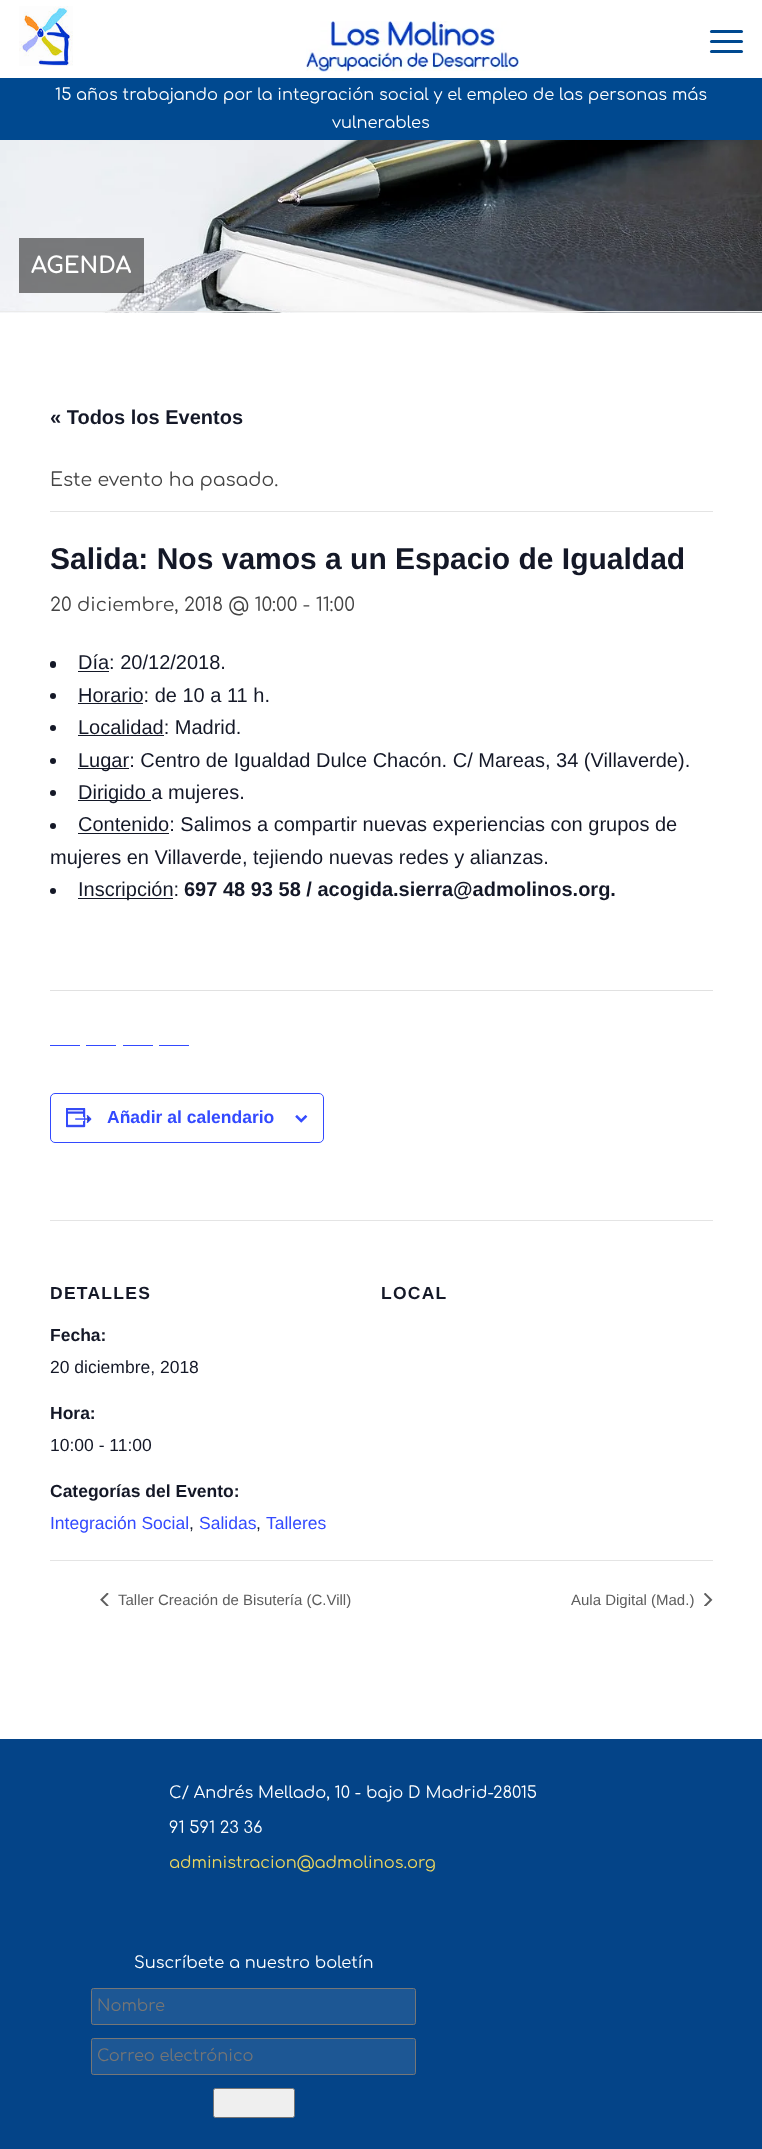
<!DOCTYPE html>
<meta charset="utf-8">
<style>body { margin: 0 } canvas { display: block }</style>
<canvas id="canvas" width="762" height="2149"></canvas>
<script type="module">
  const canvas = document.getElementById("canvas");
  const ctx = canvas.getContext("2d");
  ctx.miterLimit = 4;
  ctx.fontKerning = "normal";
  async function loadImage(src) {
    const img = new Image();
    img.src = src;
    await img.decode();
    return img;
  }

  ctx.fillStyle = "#ffffff";
  ctx.fillRect(0, 0, 762, 2149);
  ctx.drawImage(await loadImage("img1.png"), 19, 6, 54, 60);
  ctx.drawImage(await loadImage("img2.png"), 306, 21, 213, 51);
  ctx.fillStyle = "#004990";
  ctx.beginPath();
  ctx.roundRect(710, 30, 33, 3, 1.5);
  ctx.fill();
  ctx.beginPath();
  ctx.roundRect(710, 40, 33, 3, 1.5);
  ctx.fill();
  ctx.beginPath();
  ctx.roundRect(710, 50, 33, 3, 1.5);
  ctx.fill();
  ctx.fillRect(0, 78, 762, 62);
  ctx.font = "16.25px Comfortaa";
  ctx.fillStyle = "#ffffff";
  ctx.fillText("15 años trabajando por la integración social y el empleo de las personas más", 55, 100);
  ctx.fillText("vulnerables", 332, 128);
  ctx.fillStyle = "#fafafa";
  ctx.fillRect(0, 312, 762, 1);
  ctx.drawImage(await loadImage("img3.png"), 0, 140, 762, 173);
  ctx.fillStyle = "#ebebeb";
  ctx.fillRect(0, 311, 762, 1);
  ctx.fillStyle = "rgba(0, 0, 0, 0.5)";
  ctx.fillRect(19, 238, 125, 55);
  ctx.font = "bold 22.5px Comfortaa";
  ctx.fillStyle = "#ffffff";
  ctx.fillText("AGENDA", 31, 273);
  ctx.font = "bold 20px Liberation Sans";
  ctx.fillStyle = "#141827";
  ctx.fillText("« Todos los Eventos", 50, 424);
  ctx.fillStyle = "#e4e4e4";
  ctx.fillRect(50, 511, 663, 1);
  ctx.font = "18.75px Comfortaa";
  ctx.fillStyle = "#444444";
  ctx.fillText("Este evento ha pasado.", 50, 486);
  ctx.font = "bold 30px Liberation Sans";
  ctx.fillStyle = "#141827";
  ctx.fillText("Salida: Nos vamos a un Espacio de Igualdad", 50, 569);
  ctx.font = "18.75px Comfortaa";
  ctx.fillStyle = "#444444";
  ctx.fillText("20 diciembre, 2018 @ 10:00 - 11:00", 50, 611);
  ctx.fillStyle = "#141827";
  ctx.beginPath();
  ctx.roundRect(50, 661, 6, 7, 3);
  ctx.fill();
  ctx.font = "20px Liberation Sans";
  ctx.fillText("Día: 20/12/2018.", 78, 669);
  ctx.fillRect(78, 671, 31, 1);
  ctx.beginPath();
  ctx.arc(53, 696, 3, 0, Math.PI * 2);
  ctx.fill();
  ctx.fillText("Horario: de 10 a 11 h.", 78, 702);
  ctx.fillRect(78, 703, 65, 1);
  ctx.beginPath();
  ctx.arc(53, 728, 3, 0, Math.PI * 2);
  ctx.fill();
  ctx.fillText("Localidad: Madrid.", 78, 734);
  ctx.fillRect(78, 735, 86, 1);
  ctx.beginPath();
  ctx.arc(53, 761, 3, 0, Math.PI * 2);
  ctx.fill();
  ctx.fillRect(78, 768, 51, 1);
  ctx.fillText("Lugar: Centro de Igualdad Dulce Chacón. C/ Mareas, 34 (Villaverde).", 78, 767);
  ctx.beginPath();
  ctx.arc(53, 793, 3, 0, Math.PI * 2);
  ctx.fill();
  ctx.fillRect(78, 800, 73, 1);
  ctx.fillText("Dirigido a mujeres.", 78, 799);
  ctx.beginPath();
  ctx.arc(53, 826, 3, 0, Math.PI * 2);
  ctx.fill();
  ctx.fillRect(78, 833, 91, 1);
  ctx.fillText("Contenido: Salimos a compartir nuevas experiencias con grupos de", 78, 831);
  ctx.fillText("mujeres en Villaverde, tejiendo nuevas redes y alianzas.", 50, 864);
  ctx.beginPath();
  ctx.arc(53, 891, 3, 0, Math.PI * 2);
  ctx.fill();
  ctx.fillRect(78, 898, 95, 1);
  ctx.fillText("Inscripción:", 78, 896);
  ctx.font = "bold 20px Liberation Sans";
  ctx.fillText("697 48 93 58 / acogida.sierra@admolinos.org.", 184, 896);
  ctx.fillStyle = "#e1e1e1";
  ctx.fillRect(50, 990, 663, 1);
  ctx.fillStyle = "#334aff";
  ctx.fillRect(50, 1045, 30, 1);
  ctx.fillRect(86, 1045, 30, 1);
  ctx.fillRect(123, 1045, 30, 1);
  ctx.fillRect(159, 1045, 30, 1);
  ctx.beginPath();
  ctx.roundRect(50.5, 1093.5, 273, 49, 4.5);
  ctx.strokeStyle = "#334aff";
  ctx.stroke();
  ctx.drawImage(await loadImage("img4.png"), 66, 1108, 26, 20);
  ctx.font = "bold 17.5px Liberation Sans";
  ctx.fillText("Añadir al calendario", 107, 1123);
  ctx.drawImage(await loadImage("img5.png"), 295, 1115, 13, 8);
  ctx.fillStyle = "#e4e4e4";
  ctx.fillRect(50, 1220, 663, 1);
  ctx.letterSpacing = "1.25px";
  ctx.fillStyle = "#141827";
  ctx.fillText("DETALLES", 50, 1299);
  ctx.letterSpacing = "0px";
  ctx.fillText("Fecha:", 50, 1341);
  ctx.font = "17.5px Liberation Sans";
  ctx.fillText("20 diciembre, 2018", 50, 1373);
  ctx.font = "bold 17.5px Liberation Sans";
  ctx.fillText("Hora:", 50, 1419);
  ctx.font = "17.5px Liberation Sans";
  ctx.fillText("10:00 - 11:00", 50, 1451);
  ctx.font = "bold 17.5px Liberation Sans";
  ctx.fillText("Categorías del Evento:", 50, 1497);
  ctx.font = "17.5px Liberation Sans";
  ctx.fillStyle = "#334aff";
  ctx.fillText("Integración Social", 50, 1529);
  ctx.fillStyle = "#141827";
  ctx.fillText(",", 189, 1529);
  ctx.fillStyle = "#334aff";
  ctx.fillText("Salidas", 199, 1529);
  ctx.fillStyle = "#141827";
  ctx.fillText(",", 256, 1529);
  ctx.fillStyle = "#334aff";
  ctx.fillText("Talleres", 266, 1529);
  ctx.letterSpacing = "1.25px";
  ctx.font = "bold 17.5px Liberation Sans";
  ctx.fillStyle = "#141827";
  ctx.fillText("LOCAL", 381, 1299);
  ctx.fillStyle = "#e4e4e4";
  ctx.fillRect(50, 1560, 663, 1);
  ctx.drawImage(await loadImage("img6.png"), 100, 1593, 9, 13);
  ctx.letterSpacing = "0px";
  ctx.font = "15px Liberation Sans";
  ctx.fillStyle = "#5d5d5d";
  ctx.fillText("Taller Creación de Bisutería (C.Vill)", 118, 1605);
  ctx.fillText("Aula Digital (Mad.)", 571, 1605);
  ctx.drawImage(await loadImage("img7.png"), 704, 1593, 9, 13);
  ctx.fillStyle = "#044488";
  ctx.fillRect(0, 1739, 762, 410);
  ctx.font = "16.25px Comfortaa";
  ctx.fillStyle = "#ffffff";
  ctx.fillText("C/ Andrés Mellado, 10 - bajo D Madrid-28015", 169, 1798);
  ctx.fillText("91 591 23 36", 169, 1833);
  ctx.fillStyle = "#edd75f";
  ctx.fillText("administracion@admolinos.org", 169, 1868);
  ctx.fillStyle = "#ffffff";
  ctx.fillText("Suscríbete a nuestro boletín", 134, 1968);
  ctx.fillStyle = "#1d5794";
  ctx.beginPath();
  ctx.roundRect(91.5, 1988.5, 324, 36, 2);
  ctx.fill();
  ctx.strokeStyle = "#767676";
  ctx.stroke();
  ctx.fillStyle = "#757575";
  ctx.fillText("Nombre", 97, 2011);
  ctx.fillStyle = "#1d5794";
  ctx.beginPath();
  ctx.roundRect(91.5, 2038.5, 324, 36, 2);
  ctx.fill();
  ctx.stroke();
  ctx.fillStyle = "#757575";
  ctx.fillText("Correo electrónico", 97, 2061);
  ctx.fillStyle = "#efefef";
  ctx.beginPath();
  ctx.roundRect(213.5, 2088.5, 81, 29, 2);
  ctx.fill();
  ctx.stroke();
</script>
